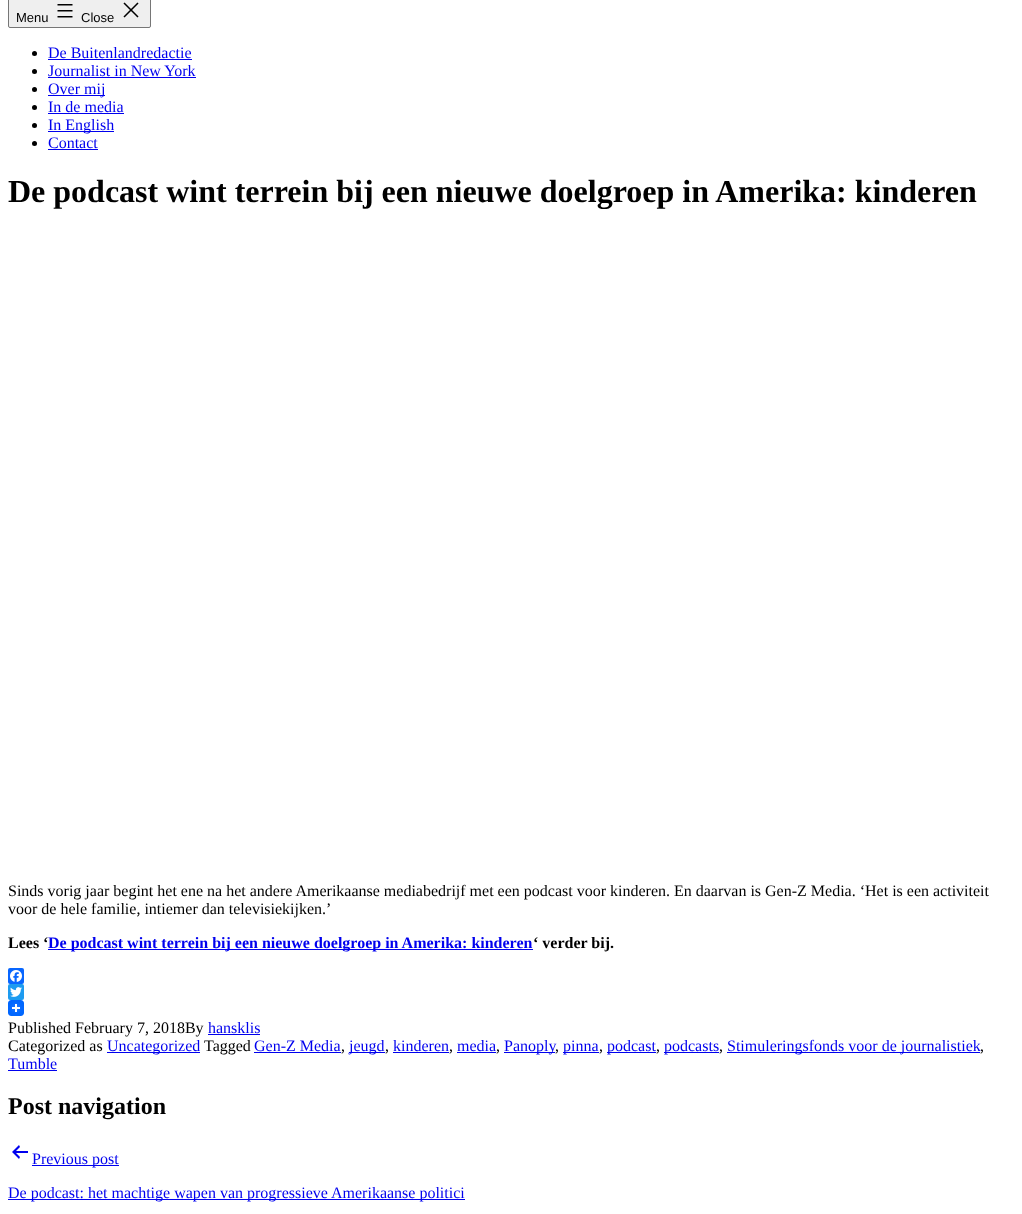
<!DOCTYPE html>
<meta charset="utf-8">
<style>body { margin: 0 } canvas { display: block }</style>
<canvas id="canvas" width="1022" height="1214"></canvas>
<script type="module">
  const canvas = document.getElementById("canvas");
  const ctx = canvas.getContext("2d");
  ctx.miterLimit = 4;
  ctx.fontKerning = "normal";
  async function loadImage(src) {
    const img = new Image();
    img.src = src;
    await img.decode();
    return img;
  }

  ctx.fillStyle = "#ffffff";
  ctx.fillRect(0, 0, 1022, 1214);
  ctx.fillStyle = "#efefef";
  ctx.beginPath();
  ctx.roundRect(8.5, -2.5, 142, 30, 1.5);
  ctx.fill();
  ctx.strokeStyle = "#767676";
  ctx.stroke();
  ctx.font = "13px Liberation Sans";
  ctx.fillStyle = "#000000";
  ctx.fillText("Menu", 16, 22);
  ctx.drawImage(await loadImage("img1.png"), 57, 4, 16, 14);
  ctx.fillText("Close", 81, 22);
  ctx.drawImage(await loadImage("img2.png"), 123, 2, 16, 16);
  ctx.beginPath();
  ctx.arc(34.5, 53.5, 2.5, 0, Math.PI * 2);
  ctx.fill();
  ctx.font = "16px Liberation Serif";
  ctx.fillStyle = "#0000ee";
  ctx.fillText("De Buitenlandredactie", 48, 58);
  ctx.fillRect(48, 59, 144, 1);
  ctx.fillStyle = "#000000";
  ctx.beginPath();
  ctx.arc(34.5, 71.5, 2.5, 0, Math.PI * 2);
  ctx.fill();
  ctx.fillStyle = "#0000ee";
  ctx.fillText("Journalist in New York", 48, 76);
  ctx.fillRect(48, 77, 148, 1);
  ctx.fillStyle = "#000000";
  ctx.beginPath();
  ctx.arc(34.5, 89.5, 2.5, 0, Math.PI * 2);
  ctx.fill();
  ctx.fillStyle = "#0000ee";
  ctx.fillRect(48, 95, 57, 1);
  ctx.fillText("Over mij", 48, 94);
  ctx.fillStyle = "#000000";
  ctx.beginPath();
  ctx.arc(34.5, 107.5, 2.5, 0, Math.PI * 2);
  ctx.fill();
  ctx.fillStyle = "#0000ee";
  ctx.fillText("In de media", 48, 112);
  ctx.fillRect(48, 113, 76, 1);
  ctx.fillStyle = "#000000";
  ctx.beginPath();
  ctx.arc(34.5, 125.5, 2.5, 0, Math.PI * 2);
  ctx.fill();
  ctx.fillStyle = "#0000ee";
  ctx.fillRect(48, 131, 66, 1);
  ctx.fillText("In English", 48, 130);
  ctx.fillStyle = "#000000";
  ctx.beginPath();
  ctx.arc(34.5, 143.5, 2.5, 0, Math.PI * 2);
  ctx.fill();
  ctx.fillStyle = "#0000ee";
  ctx.fillText("Contact", 48, 148);
  ctx.fillRect(48, 149, 50, 1);
  ctx.font = "bold 32px Liberation Serif";
  ctx.fillStyle = "#000000";
  ctx.fillText("De podcast wint terrein bij een nieuwe doelgroep in Amerika: kinderen", 8, 202);
  ctx.font = "16px Liberation Serif";
  ctx.fillText("Sinds vorig jaar begint het ene na het andere Amerikaanse mediabedrijf met een podcast voor kinderen. En daarvan is Gen-Z Media. ‘Het is een activiteit", 8, 896);
  ctx.fillText("voor de hele familie, intiemer dan televisiekijken.’", 8, 914);
  ctx.font = "bold 16px Liberation Serif";
  ctx.fillText("Lees ‘", 8, 948);
  ctx.fillStyle = "#0000ee";
  ctx.fillRect(48, 949, 485, 1);
  ctx.fillText("De podcast wint terrein bij een nieuwe doelgroep in Amerika: kinderen", 48, 948);
  ctx.fillStyle = "#000000";
  ctx.fillText("‘ verder bij.", 533, 948);
  ctx.fillStyle = "#0866ff";
  ctx.beginPath();
  ctx.roundRect(8, 968, 16, 16, 2);
  ctx.fill();
  ctx.drawImage(await loadImage("img3.png"), 10, 970, 12, 12);
  ctx.fillStyle = "#1d9bf0";
  ctx.beginPath();
  ctx.roundRect(8, 984, 16, 16, 2);
  ctx.fill();
  ctx.drawImage(await loadImage("img4.png"), 10, 987, 12, 10);
  ctx.drawImage(await loadImage("img5.png"), 8, 1000, 16, 16);
  ctx.font = "16px Liberation Serif";
  ctx.fillStyle = "#000000";
  ctx.fillText("Published February 7, 2018By", 8, 1033);
  ctx.fillStyle = "#0000ee";
  ctx.fillText("hansklis", 208, 1033);
  ctx.fillRect(208, 1034, 52, 1);
  ctx.fillStyle = "#000000";
  ctx.fillText("Categorized as", 8, 1051);
  ctx.fillStyle = "#0000ee";
  ctx.fillRect(107, 1052, 93, 1);
  ctx.fillText("Uncategorized", 107, 1051);
  ctx.fillStyle = "#000000";
  ctx.fillText("Tagged", 204, 1051);
  ctx.fillStyle = "#0000ee";
  ctx.fillText("Gen-Z Media", 254, 1051);
  ctx.fillStyle = "#000000";
  ctx.fillText(",", 341, 1051);
  ctx.fillStyle = "#0000ee";
  ctx.fillRect(254, 1052, 87, 1);
  ctx.fillRect(349, 1052, 36, 1);
  ctx.fillText("jeugd", 349, 1051);
  ctx.fillStyle = "#000000";
  ctx.fillText(",", 385, 1051);
  ctx.fillStyle = "#0000ee";
  ctx.fillText("kinderen", 393, 1051);
  ctx.fillStyle = "#000000";
  ctx.fillText(",", 449, 1051);
  ctx.fillStyle = "#0000ee";
  ctx.fillRect(393, 1052, 56, 1);
  ctx.fillText("media", 457, 1051);
  ctx.fillStyle = "#000000";
  ctx.fillText(",", 496, 1051);
  ctx.fillStyle = "#0000ee";
  ctx.fillRect(457, 1052, 39, 1);
  ctx.fillRect(504, 1052, 51, 1);
  ctx.fillText("Panoply", 504, 1051);
  ctx.fillRect(563, 1052, 36, 1);
  ctx.fillText("pinna", 563, 1051);
  ctx.fillRect(607, 1052, 49, 1);
  ctx.fillText("podcast", 607, 1051);
  ctx.fillRect(664, 1052, 55, 1);
  ctx.fillText("podcasts", 664, 1051);
  ctx.fillRect(727, 1052, 253, 1);
  ctx.fillText("Stimuleringsfonds voor de journalistiek", 727, 1051);
  ctx.fillStyle = "#000000";
  ctx.fillText(",", 555, 1051);
  ctx.fillText(",", 599, 1051);
  ctx.fillText(",", 656, 1051);
  ctx.fillText(",", 719, 1051);
  ctx.fillText(",", 980, 1051);
  ctx.fillStyle = "#0000ee";
  ctx.fillText("Tumble", 8, 1069);
  ctx.fillRect(8, 1070, 49, 1);
  ctx.font = "bold 24px Liberation Serif";
  ctx.fillStyle = "#000000";
  ctx.fillText("Post navigation", 8, 1114);
  ctx.drawImage(await loadImage("img6.png"), 12, 1145, 16, 14);
  ctx.fillStyle = "#0000ee";
  ctx.fillRect(32, 1165, 87, 1);
  ctx.font = "16px Liberation Serif";
  ctx.fillText("Previous post", 32, 1164);
  ctx.fillRect(8, 1199, 457, 1);
  ctx.fillText("De podcast: het machtige wapen van progressieve Amerikaanse politici", 8, 1198);
</script>
